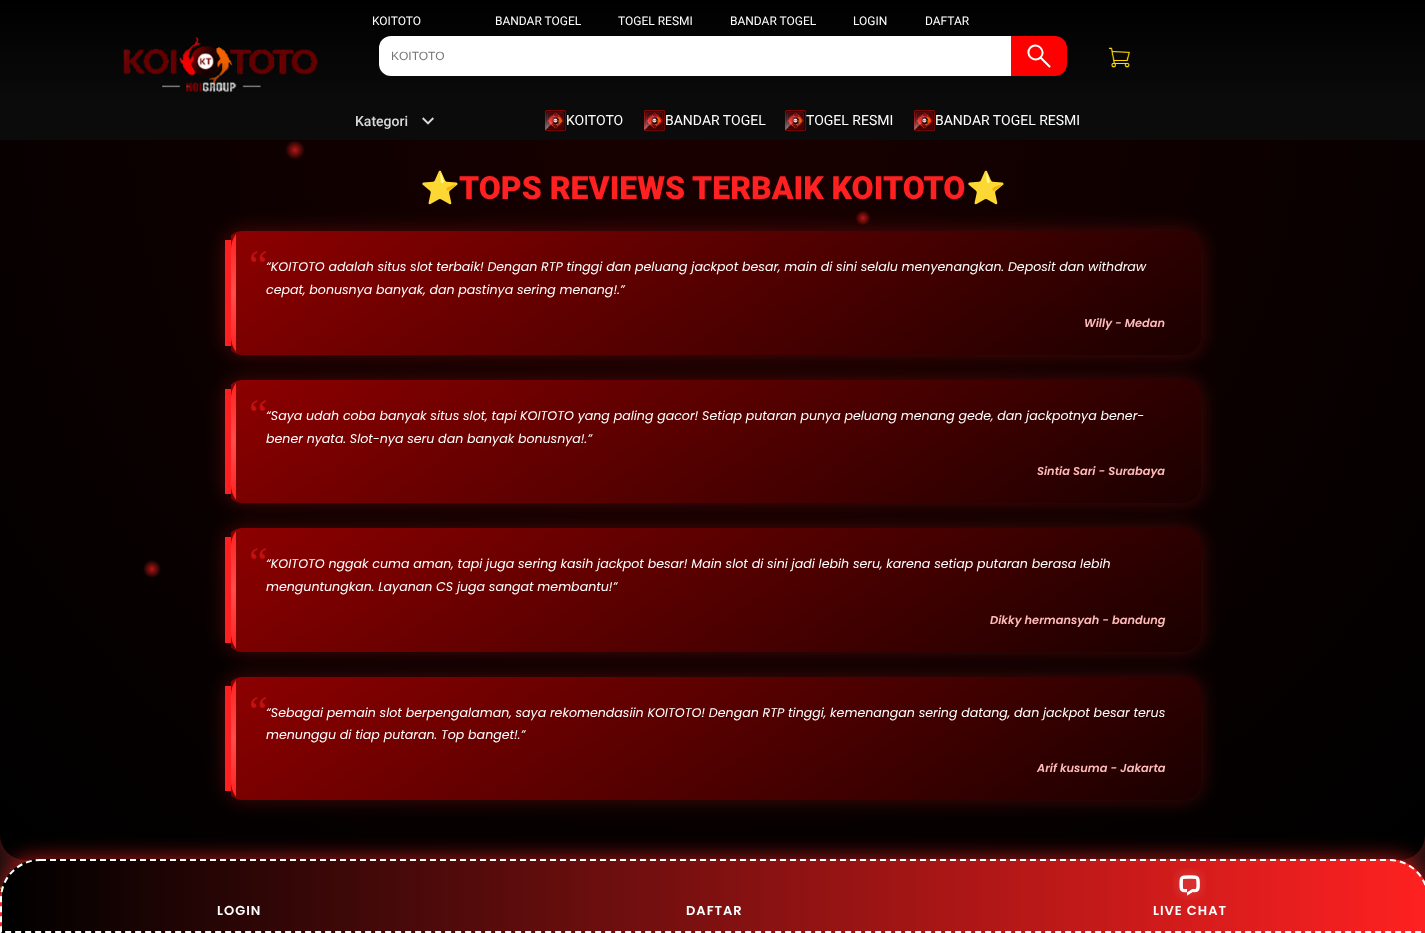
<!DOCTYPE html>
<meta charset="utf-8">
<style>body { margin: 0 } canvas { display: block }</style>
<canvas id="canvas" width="1425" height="933"></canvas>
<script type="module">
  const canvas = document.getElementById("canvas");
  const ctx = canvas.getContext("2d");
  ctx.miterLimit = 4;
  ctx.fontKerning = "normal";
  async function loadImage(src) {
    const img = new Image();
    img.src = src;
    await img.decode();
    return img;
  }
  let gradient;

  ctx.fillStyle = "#ffffff";
  ctx.fillRect(0, 0, 1425, 933);
  gradient = ctx.createLinearGradient(712, -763, 713, 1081);
  gradient.addColorStop(0, "#0c0c0c");
  gradient.addColorStop(1, "#0d0d0d");
  ctx.fillStyle = gradient;
  ctx.fillRect(0, 835, 1425, 54);
  ctx.fillStyle = "rgba(255, 33, 33, 0.4)";
  ctx.filter = "blur(15px)";
  ctx.beginPath();
  ctx.roundRect(0, 110, 1425, 750, 25);
  ctx.fill();
  ctx.filter = "none";
  gradient = ctx.createLinearGradient(713, 0, 713, 100);
  gradient.addColorStop(0, "#000000");
  gradient.addColorStop(1, "#0a0a0a");
  ctx.fillStyle = gradient;
  ctx.fillRect(0, 0, 1425, 100);
  ctx.font = "12px Roboto";
  ctx.fillStyle = "#ffffff";
  ctx.fillText("KOITOTO", 372, 25);
  ctx.fillText("BANDAR TOGEL", 495, 25);
  ctx.fillText("TOGEL RESMI", 618, 25);
  ctx.fillText("BANDAR TOGEL", 730, 25);
  ctx.fillText("LOGIN", 853, 25);
  ctx.fillText("DAFTAR", 925, 25);
  ctx.drawImage(await loadImage("img1.png"), 123, 36, 195, 56);
  ctx.beginPath();
  ctx.roundRect(379, 36, 632, 40, [12, 0, 0, 12]);
  ctx.fill();
  ctx.font = "12px Liberation Sans";
  ctx.fillStyle = "#757575";
  ctx.fillText("KOITOTO", 391, 60);
  ctx.fillStyle = "#ff0000";
  ctx.beginPath();
  ctx.roundRect(1011, 36, 56, 40, [0, 12, 12, 0]);
  ctx.fill();
  ctx.beginPath();
  ctx.moveTo(1040.5, 57.5);
  ctx.bezierCurveTo(1047, 51, 1037, 41, 1030.5, 47.5);
  ctx.bezierCurveTo(1024, 54, 1034, 64, 1040.5, 57.5);
  ctx.closePath();
  ctx.moveTo(1041, 58);
  ctx.lineTo(1049.5, 66.5);
  ctx.strokeStyle = "#ffffff";
  ctx.lineWidth = 2;
  ctx.lineCap = "round";
  ctx.lineJoin = "round";
  ctx.stroke();
  ctx.drawImage(await loadImage("img2.png"), 1108, 47, 22, 21);
  gradient = ctx.createRadialGradient(713, 110, 0, 713, 110, 1034);
  gradient.addColorStop(0, "#1a0000");
  gradient.addColorStop(1, "#000000");
  ctx.fillStyle = gradient;
  ctx.beginPath();
  ctx.roundRect(0, 110, 1425, 750, 25);
  ctx.fill();
  ctx.fillStyle = "#0b0b0b";
  ctx.fillRect(0, 100, 1425, 40);
  ctx.font = "500 14px Roboto";
  ctx.fillStyle = "#dadada";
  ctx.fillText("Kategori", 355, 126);
  ctx.drawImage(await loadImage("img3.png"), 422, 117, 12, 8);
  ctx.drawImage(await loadImage("img4.png"), 545, 110, 21, 21);
  ctx.font = "14px Roboto";
  ctx.fillStyle = "#ffffff";
  ctx.fillText("KOITOTO", 566, 125);
  ctx.drawImage(await loadImage("img5.png"), 644, 110, 21, 21);
  ctx.fillText("BANDAR TOGEL", 665, 125);
  ctx.drawImage(await loadImage("img5.png"), 785, 110, 21, 21);
  ctx.fillText("TOGEL RESMI", 806, 125);
  ctx.drawImage(await loadImage("img5.png"), 914, 110, 21, 21);
  ctx.fillText("BANDAR TOGEL RESMI", 935, 125);
  gradient = ctx.createRadialGradient(295, 150, 0, 295, 150, 14);
  gradient.addColorStop(0, "#b71717");
  gradient.addColorStop(0.7, "#0f0000");
  ctx.fillStyle = gradient;
  ctx.beginPath();
  ctx.arc(295, 150, 10, 0, Math.PI * 2);
  ctx.fill();
  ctx.font = "bold 32px Noto Color Emoji";
  ctx.fillStyle = "#ff2121";
  ctx.fillText("⭐️", 420, 199);
  ctx.font = "900 32px Roboto";
  ctx.fillText("TOPS REVIEWS TERBAIK KOITOTO", 459, 199);
  ctx.font = "bold 32px Noto Color Emoji";
  ctx.fillText("⭐️", 966, 199);
  gradient = ctx.createRadialGradient(863, 218, 0, 863, 218, 11);
  gradient.addColorStop(0, "#b91717");
  gradient.addColorStop(0.7, "#150000");
  ctx.fillStyle = gradient;
  ctx.beginPath();
  ctx.arc(862.5, 217.5, 7.5, 0, Math.PI * 2);
  ctx.fill();
  gradient = ctx.createRadialGradient(152, 569, 0, 152, 569, 13);
  gradient.addColorStop(0, "#b51717");
  gradient.addColorStop(0.7, "#080000");
  ctx.fillStyle = gradient;
  ctx.beginPath();
  ctx.arc(152, 569, 9, 0, Math.PI * 2);
  ctx.fill();
  ctx.fillStyle = "rgba(255, 33, 33, 0.25)";
  ctx.filter = "blur(10px)";
  ctx.beginPath();
  ctx.roundRect(225, 231, 976, 124, 18);
  ctx.fill();
  ctx.filter = "none";
  ctx.save();
  ctx.beginPath();
  ctx.roundRect(225, 231, 976, 124, 18);
  ctx.clip();
  gradient = ctx.createLinearGradient(-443, 24, -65, 562);
  gradient.addColorStop(0, "#8d0000");
  gradient.addColorStop(1, "#1a0000");
  ctx.fillStyle = gradient;
  ctx.fillRect(227, 231, 4, 124);
  gradient = ctx.createLinearGradient(527, 24, 905, 562);
  gradient.addColorStop(0, "#8d0000");
  gradient.addColorStop(1, "#1a0000");
  ctx.fillStyle = gradient;
  ctx.beginPath();
  ctx.roundRect(231, 231, 970, 124, [0, 18, 18, 0]);
  ctx.fill();
  ctx.restore();
  ctx.fillStyle = "#ff2121";
  ctx.fillRect(225, 240, 6, 106);
  gradient = ctx.createLinearGradient(234, 231, 234, 355);
  gradient.addColorStop(0, "#ff2121");
  gradient.addColorStop(0.5, "#ff4d4d");
  gradient.addColorStop(1, "#ff2121");
  ctx.fillStyle = gradient;
  ctx.beginPath();
  ctx.moveTo(236, 234);
  ctx.bezierCurveTo(233, 238, 231, 243, 231, 249);
  ctx.lineTo(231, 337);
  ctx.bezierCurveTo(231, 343, 233, 348, 236, 352);
  ctx.closePath();
  ctx.fill();
  ctx.font = "42px Liberation Serif";
  ctx.fillStyle = "#c31111";
  ctx.fillText("“", 249, 279);
  ctx.font = "italic 12.6px Poppins";
  ctx.fillStyle = "#ffffff";
  ctx.fillText("“KOITOTO adalah situs slot terbaik! Dengan RTP tinggi dan peluang jackpot besar, main di sini selalu menyenangkan. Deposit dan withdraw", 266, 271);
  ctx.fillText("cepat, bonusnya banyak, dan pastinya sering menang!.”", 266, 294);
  ctx.font = "italic 600 11.4px Poppins";
  ctx.fillStyle = "#ffbaba";
  ctx.fillText("Willy - Medan", 1084, 327);
  ctx.fillStyle = "rgba(255, 33, 33, 0.25)";
  ctx.filter = "blur(10px)";
  ctx.beginPath();
  ctx.roundRect(225, 380, 976, 123, 18);
  ctx.fill();
  ctx.filter = "none";
  ctx.save();
  ctx.beginPath();
  ctx.roundRect(225, 380, 976, 123, 18);
  ctx.clip();
  gradient = ctx.createLinearGradient(-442, 172, -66, 711);
  gradient.addColorStop(0, "#8d0000");
  gradient.addColorStop(1, "#1a0000");
  ctx.fillStyle = gradient;
  ctx.fillRect(227, 380, 4, 123);
  gradient = ctx.createLinearGradient(528, 172, 904, 711);
  gradient.addColorStop(0, "#8d0000");
  gradient.addColorStop(1, "#1a0000");
  ctx.fillStyle = gradient;
  ctx.beginPath();
  ctx.roundRect(231, 380, 970, 123, [0, 18, 18, 0]);
  ctx.fill();
  ctx.restore();
  ctx.fillStyle = "#ff2121";
  ctx.fillRect(225, 389, 6, 105);
  gradient = ctx.createLinearGradient(234, 380, 234, 503);
  gradient.addColorStop(0, "#ff2121");
  gradient.addColorStop(0.5, "#ff4d4d");
  gradient.addColorStop(1, "#ff2121");
  ctx.fillStyle = gradient;
  ctx.beginPath();
  ctx.moveTo(236, 383);
  ctx.bezierCurveTo(233, 387, 231, 392, 231, 398);
  ctx.lineTo(231, 485);
  ctx.bezierCurveTo(231, 491, 233, 496, 236, 500);
  ctx.closePath();
  ctx.fill();
  ctx.font = "42px Liberation Serif";
  ctx.fillStyle = "#c31111";
  ctx.fillText("“", 249, 428);
  ctx.font = "italic 12.6px Poppins";
  ctx.fillStyle = "#ffffff";
  ctx.fillText("“Saya udah coba banyak situs slot, tapi KOITOTO yang paling gacor! Setiap putaran punya peluang menang gede, dan jackpotnya bener-", 266, 420);
  ctx.fillText("bener nyata. Slot-nya seru dan banyak bonusnya!.”", 266, 443);
  ctx.font = "italic 600 11.4px Poppins";
  ctx.fillStyle = "#ffbaba";
  ctx.fillText("Sintia Sari - Surabaya", 1037, 475);
  ctx.fillStyle = "rgba(255, 33, 33, 0.25)";
  ctx.filter = "blur(10px)";
  ctx.beginPath();
  ctx.roundRect(225, 528, 976, 124, 18);
  ctx.fill();
  ctx.filter = "none";
  ctx.save();
  ctx.beginPath();
  ctx.roundRect(225, 528, 976, 124, 18);
  ctx.clip();
  gradient = ctx.createLinearGradient(-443, 321, -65, 859);
  gradient.addColorStop(0, "#8d0000");
  gradient.addColorStop(1, "#1a0000");
  ctx.fillStyle = gradient;
  ctx.fillRect(227, 528, 4, 124);
  gradient = ctx.createLinearGradient(527, 321, 905, 859);
  gradient.addColorStop(0, "#8d0000");
  gradient.addColorStop(1, "#1a0000");
  ctx.fillStyle = gradient;
  ctx.beginPath();
  ctx.roundRect(231, 528, 970, 124, [0, 18, 18, 0]);
  ctx.fill();
  ctx.restore();
  ctx.fillStyle = "#ff2121";
  ctx.fillRect(225, 537, 6, 106);
  gradient = ctx.createLinearGradient(234, 528, 234, 652);
  gradient.addColorStop(0, "#ff2121");
  gradient.addColorStop(0.5, "#ff4d4d");
  gradient.addColorStop(1, "#ff2121");
  ctx.fillStyle = gradient;
  ctx.beginPath();
  ctx.moveTo(236, 531);
  ctx.bezierCurveTo(233, 535, 231, 540, 231, 546);
  ctx.lineTo(231, 634);
  ctx.bezierCurveTo(231, 640, 233, 645, 236, 649);
  ctx.closePath();
  ctx.fill();
  ctx.font = "42px Liberation Serif";
  ctx.fillStyle = "#c31111";
  ctx.fillText("“", 249, 576);
  ctx.font = "italic 12.6px Poppins";
  ctx.fillStyle = "#ffffff";
  ctx.fillText("“KOITOTO nggak cuma aman, tapi juga sering kasih jackpot besar! Main slot di sini jadi lebih seru, karena setiap putaran berasa lebih", 266, 568);
  ctx.fillText("menguntungkan. Layanan CS juga sangat membantu!”", 266, 591);
  ctx.font = "italic 600 11.4px Poppins";
  ctx.fillStyle = "#ffbaba";
  ctx.fillText("Dikky hermansyah - bandung", 990, 624);
  ctx.fillStyle = "rgba(255, 33, 33, 0.25)";
  ctx.filter = "blur(10px)";
  ctx.beginPath();
  ctx.roundRect(225, 677, 976, 123, 18);
  ctx.fill();
  ctx.filter = "none";
  ctx.save();
  ctx.beginPath();
  ctx.roundRect(225, 677, 976, 123, 18);
  ctx.clip();
  gradient = ctx.createLinearGradient(-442, 469, -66, 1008);
  gradient.addColorStop(0, "#8d0000");
  gradient.addColorStop(1, "#1a0000");
  ctx.fillStyle = gradient;
  ctx.fillRect(227, 677, 4, 123);
  gradient = ctx.createLinearGradient(528, 469, 904, 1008);
  gradient.addColorStop(0, "#8d0000");
  gradient.addColorStop(1, "#1a0000");
  ctx.fillStyle = gradient;
  ctx.beginPath();
  ctx.roundRect(231, 677, 970, 123, [0, 18, 18, 0]);
  ctx.fill();
  ctx.restore();
  ctx.fillStyle = "#ff2121";
  ctx.fillRect(225, 686, 6, 105);
  gradient = ctx.createLinearGradient(234, 677, 234, 800);
  gradient.addColorStop(0, "#ff2121");
  gradient.addColorStop(0.5, "#ff4d4d");
  gradient.addColorStop(1, "#ff2121");
  ctx.fillStyle = gradient;
  ctx.beginPath();
  ctx.moveTo(236, 680);
  ctx.bezierCurveTo(233, 684, 231, 689, 231, 695);
  ctx.lineTo(231, 782);
  ctx.bezierCurveTo(231, 788, 233, 793, 236, 797);
  ctx.closePath();
  ctx.fill();
  ctx.font = "42px Liberation Serif";
  ctx.fillStyle = "#c31111";
  ctx.fillText("“", 249, 725);
  ctx.font = "italic 12.6px Poppins";
  ctx.fillStyle = "#ffffff";
  ctx.fillText("“Sebagai pemain slot berpengalaman, saya rekomendasiin KOITOTO! Dengan RTP tinggi, kemenangan sering datang, dan jackpot besar terus", 266, 717);
  ctx.fillText("menunggu di tiap putaran. Top banget!.”", 266, 739);
  ctx.font = "italic 600 11.4px Poppins";
  ctx.fillStyle = "#ffbaba";
  ctx.fillText("Arif kusuma - Jakarta", 1037, 772);
  ctx.fillStyle = "#ffd900";
  ctx.filter = "blur(1.5px)";
  ctx.beginPath();
  ctx.rect(-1, 888, 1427, 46);
  ctx.fill();
  ctx.filter = "none";
  gradient = ctx.createLinearGradient(713, 889, 713, 933);
  gradient.addColorStop(0, "#0e0e0e");
  gradient.addColorStop(1, "#0a0a0a");
  ctx.fillStyle = gradient;
  ctx.fillRect(0, 889, 2, 10);
  ctx.fillStyle = "rgba(255, 33, 33, 0.6)";
  ctx.filter = "blur(10px)";
  ctx.beginPath();
  ctx.roundRect(0, 857, 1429, 74, 40);
  ctx.fill();
  ctx.filter = "none";
  ctx.save();
  ctx.beginPath();
  ctx.moveTo(40, 859);
  ctx.lineTo(1389, 859);
  ctx.bezierCurveTo(1411, 859, 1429, 877, 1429, 899);
  ctx.lineTo(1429, 933);
  ctx.lineTo(0, 933);
  ctx.lineTo(0, 899);
  ctx.bezierCurveTo(0, 877, 18, 859, 40, 859);
  ctx.closePath();
  ctx.clip();
  gradient = ctx.createLinearGradient(-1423, 896, 2, 896);
  gradient.addColorStop(0, "#000000");
  gradient.addColorStop(1, "#ff2121");
  ctx.fillStyle = gradient;
  ctx.fillRect(0, 886, 2, 47);
  gradient = ctx.createLinearGradient(2, 896, 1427, 896);
  gradient.addColorStop(0, "#000000");
  gradient.addColorStop(1, "#ff2121");
  ctx.fillStyle = gradient;
  ctx.fillRect(2, 859, 1423, 74);
  ctx.restore();
  ctx.beginPath();
  ctx.moveTo(40, 860);
  ctx.lineTo(1389, 860);
  ctx.bezierCurveTo(1410.5, 860, 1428, 877.5, 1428, 899);
  ctx.lineTo(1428, 932);
  ctx.lineTo(1, 932);
  ctx.lineTo(1, 899);
  ctx.bezierCurveTo(1, 877.5, 18.5, 860, 40, 860);
  ctx.closePath();
  ctx.lineCap = "butt";
  ctx.lineJoin = "miter";
  ctx.setLineDash([6, 4]);
  ctx.stroke();
  ctx.letterSpacing = "1px";
  ctx.font = "600 13px Poppins";
  ctx.fillStyle = "#ffffff";
  ctx.fillText("LOGIN", 217, 915);
  ctx.fillText("DAFTAR", 686, 915);
  ctx.drawImage(await loadImage("img6.png"), 1173, 868, 33, 32);
  ctx.fillText("LIVE CHAT", 1153, 915);
</script>
